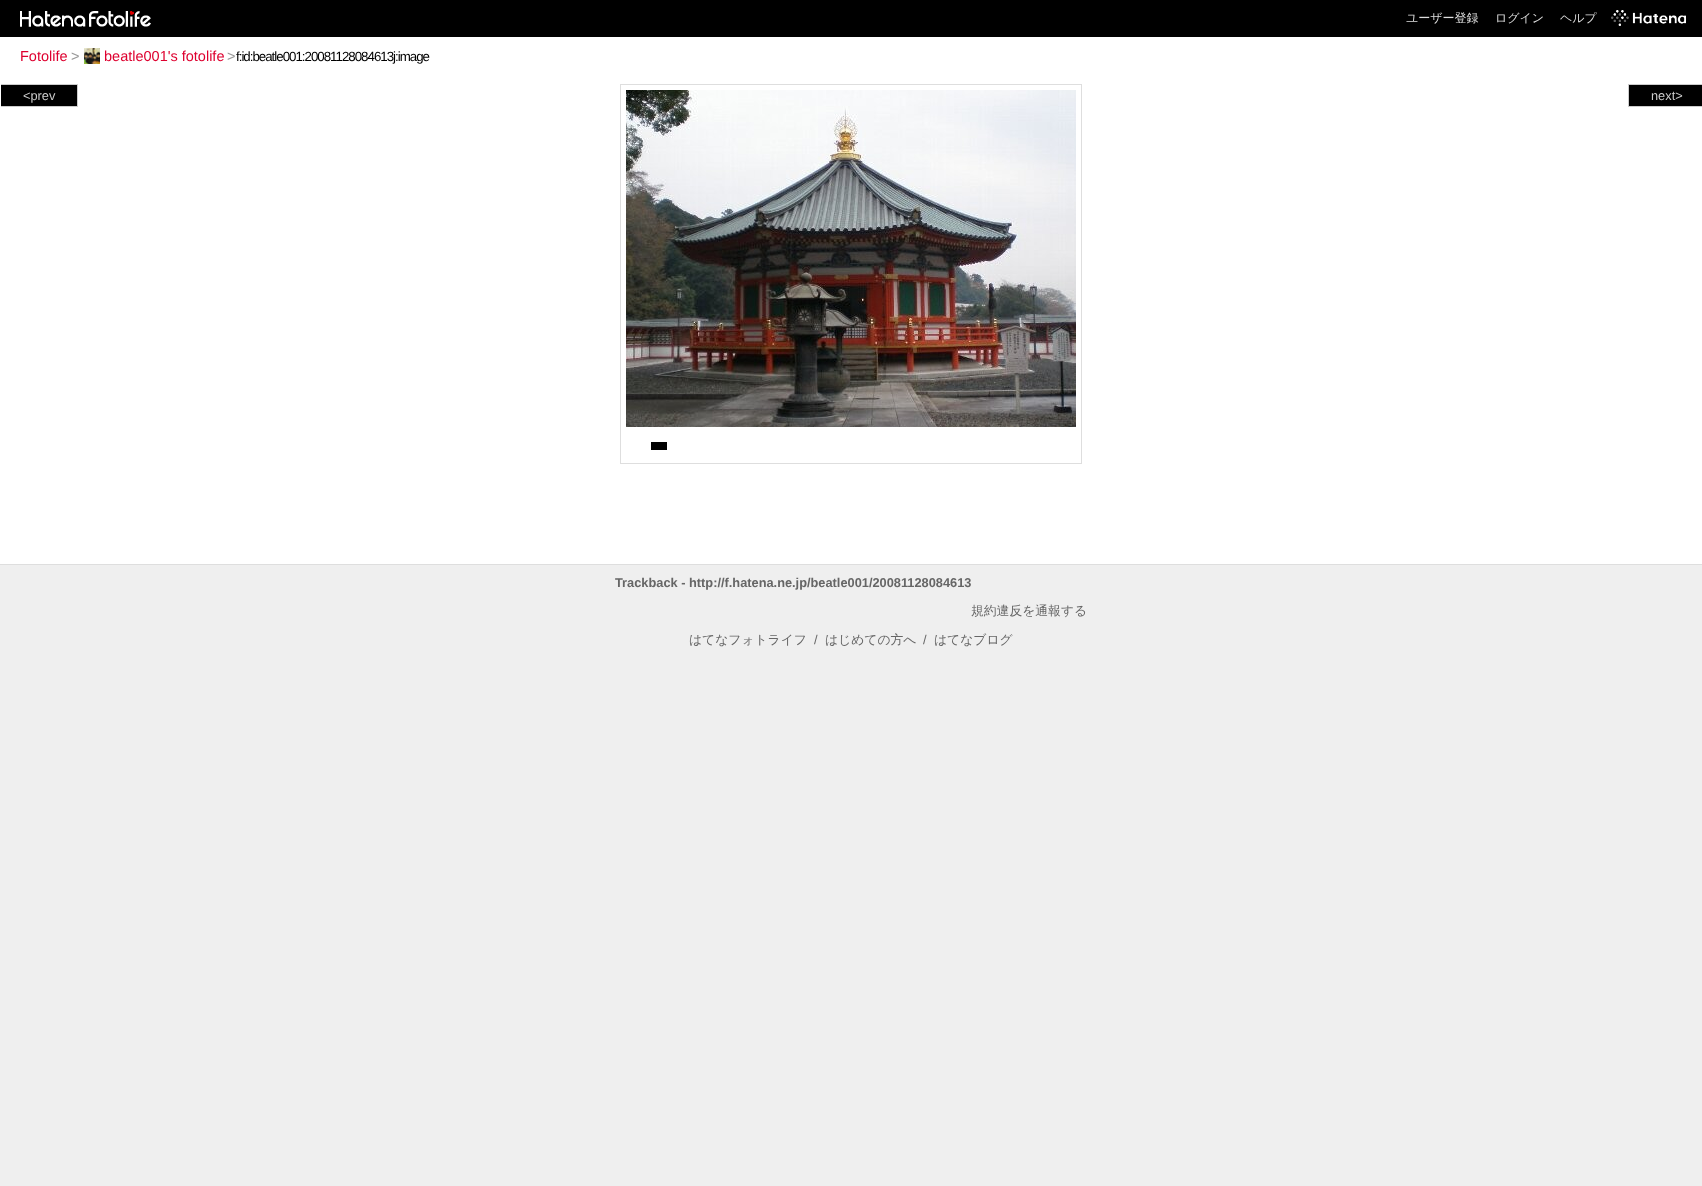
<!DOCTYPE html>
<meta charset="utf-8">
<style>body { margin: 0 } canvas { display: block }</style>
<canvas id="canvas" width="1702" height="1186"></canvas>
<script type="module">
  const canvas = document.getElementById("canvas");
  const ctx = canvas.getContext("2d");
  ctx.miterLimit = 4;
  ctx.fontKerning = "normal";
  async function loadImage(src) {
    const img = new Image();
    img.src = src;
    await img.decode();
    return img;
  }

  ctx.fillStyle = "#efefef";
  ctx.fillRect(0, 0, 1702, 1186);
  ctx.fillStyle = "#000000";
  ctx.fillRect(0, 0, 1702, 37);
  ctx.drawImage(await loadImage("img1.png"), 20, 11, 66, 16);
  ctx.drawImage(await loadImage("img2.png"), 89, 11, 62, 16);
  ctx.font = "500 12px WenQuanYi Zen Hei";
  ctx.fillStyle = "#dddddd";
  ctx.fillText("ユーザー登録", 1406, 22);
  ctx.fillText("ログイン", 1495, 22);
  ctx.fillText("ヘルプ", 1560, 22);
  ctx.drawImage(await loadImage("img3.png"), 1611, 10, 75, 16);
  ctx.fillStyle = "#ffffff";
  ctx.fillRect(0, 37, 1702, 527);
  ctx.font = "14.5px Liberation Sans";
  ctx.fillStyle = "#de002f";
  ctx.fillText("Fotolife", 20, 61);
  ctx.fillStyle = "#999999";
  ctx.fillText(">", 71, 61);
  ctx.drawImage(await loadImage("img4.png"), 84, 48, 16, 16);
  ctx.fillStyle = "#de002f";
  ctx.fillText("beatle001's fotolife", 104, 61);
  ctx.fillStyle = "#999999";
  ctx.fillText(">", 227, 61);
  ctx.letterSpacing = "-1px";
  ctx.font = "13.3px Liberation Sans";
  ctx.fillStyle = "#000000";
  ctx.fillText("f:id:beatle001:20081128084613j:image", 236, 61);
  ctx.fillStyle = "#dedede";
  ctx.fillRect(0, 564, 1702, 1);
  ctx.fillStyle = "#000000";
  ctx.fillRect(1, 85, 76, 21);
  ctx.fillStyle = "#cccccc";
  ctx.fillRect(1, 84, 77, 1);
  ctx.fillRect(77, 84, 1, 23);
  ctx.fillRect(1, 106, 77, 1);
  ctx.letterSpacing = "0px";
  ctx.font = "12.8px Liberation Sans";
  ctx.fillText("<prev", 23, 100);
  ctx.strokeStyle = "#dedede";
  ctx.strokeRect(620.5, 84.5, 461, 379);
  ctx.drawImage(await loadImage("img5.png"), 626, 90, 450, 337);
  ctx.fillStyle = "#000000";
  ctx.fillRect(651, 442, 16, 8);
  ctx.fillRect(1629, 85, 73, 21);
  ctx.fillStyle = "#cccccc";
  ctx.fillRect(1628, 84, 74, 1);
  ctx.fillRect(1628, 106, 74, 1);
  ctx.fillRect(1628, 84, 1, 23);
  ctx.fillText("next>", 1651, 100);
  ctx.font = "bold 12.8px Liberation Sans";
  ctx.fillStyle = "#666666";
  ctx.fillText("Trackback - http://f.hatena.ne.jp/beatle001/20081128084613", 615, 587);
  ctx.font = "500 12.8px WenQuanYi Zen Hei";
  ctx.fillText("規約違反を通報する", 971, 615);
  ctx.fillText("はてなフォトライフ", 689, 644);
  ctx.font = "12.8px Liberation Sans";
  ctx.fillText("/", 814, 644);
  ctx.font = "500 12.8px WenQuanYi Zen Hei";
  ctx.fillText("はじめての方へ", 825, 644);
  ctx.font = "12.8px Liberation Sans";
  ctx.fillText("/", 923, 644);
  ctx.font = "500 12.8px WenQuanYi Zen Hei";
  ctx.fillText("はてなブログ", 934, 644);
</script>
